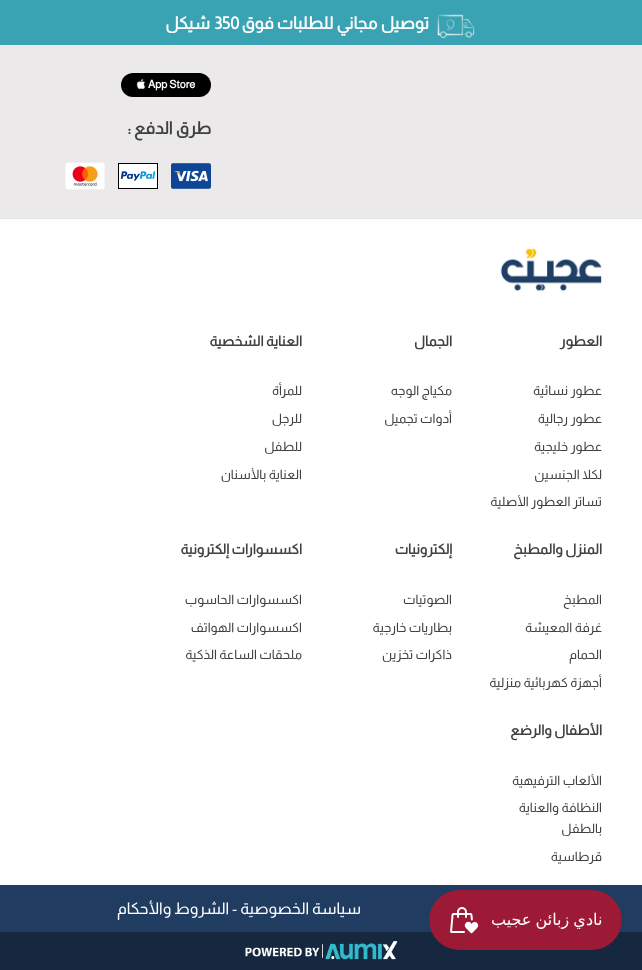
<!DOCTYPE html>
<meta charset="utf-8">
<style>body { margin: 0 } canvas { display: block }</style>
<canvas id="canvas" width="642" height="970"></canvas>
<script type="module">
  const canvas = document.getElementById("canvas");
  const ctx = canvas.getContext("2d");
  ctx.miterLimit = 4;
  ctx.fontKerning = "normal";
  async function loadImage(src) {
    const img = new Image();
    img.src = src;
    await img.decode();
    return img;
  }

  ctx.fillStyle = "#ffffff";
  ctx.fillRect(0, 0, 642, 970);
  ctx.fillStyle = "#3aa3b3";
  ctx.fillRect(0, 0, 642, 45);
  ctx.drawImage(await loadImage("img1.png"), 437, 14, 38, 24);
  ctx.direction = "rtl";
  ctx.font = "bold 17px Almarai";
  ctx.fillStyle = "#ffffff";
  ctx.fillText("توصيل مجاني للطلبات فوق", 429, 29);
  ctx.direction = "ltr";
  ctx.fillText("350", 214, 29);
  ctx.direction = "rtl";
  ctx.fillText("شيكل", 210, 29);
  ctx.fillStyle = "#ebe9e9";
  ctx.fillRect(0, 45, 642, 173);
  ctx.fillStyle = "#000000";
  ctx.beginPath();
  ctx.roundRect(121, 73, 90, 24, 12);
  ctx.fill();
  ctx.direction = "ltr";
  ctx.font = "bold 11px Almarai";
  ctx.fillStyle = "#ffffff";
  ctx.fillText("App Store", 148, 88);
  ctx.drawImage(await loadImage("img2.png"), 136, 78, 10, 11);
  ctx.direction = "rtl";
  ctx.font = "bold 17px Almarai";
  ctx.fillStyle = "#3f4042";
  ctx.fillText("طرق الدفع :", 211, 134);
  ctx.drawImage(await loadImage("img3.png"), 171, 163, 40, 26);
  ctx.drawImage(await loadImage("img4.png"), 118, 163, 40, 26);
  ctx.drawImage(await loadImage("img5.png"), 65, 162, 40, 28);
  ctx.fillStyle = "#e5e5e5";
  ctx.fillRect(0, 218, 642, 1);
  ctx.drawImage(await loadImage("img6.png"), 500, 248, 102, 44);
  ctx.font = "bold 14px Almarai";
  ctx.fillStyle = "#3f4042";
  ctx.fillText("العطور", 602, 346);
  ctx.font = "13px Almarai";
  ctx.fillText("عطور نسائية", 602, 395);
  ctx.fillText("عطور رجالية", 602, 423);
  ctx.fillText("عطور خليجية", 602, 451);
  ctx.fillText("لكلا الجنسين", 602, 479);
  ctx.fillText("تساتر العطور الأصلية", 602, 506);
  ctx.font = "bold 14px Almarai";
  ctx.fillText("الجمال", 452, 346);
  ctx.font = "13px Almarai";
  ctx.fillText("مكياج الوجه", 452, 395);
  ctx.fillText("أدوات تجميل", 452, 423);
  ctx.font = "bold 14px Almarai";
  ctx.fillText("العناية الشخصية", 302, 346);
  ctx.font = "13px Almarai";
  ctx.fillText("للمرأة", 302, 395);
  ctx.fillText("للرجل", 302, 423);
  ctx.fillText("للطفل", 302, 451);
  ctx.fillText("العناية بالأسنان", 302, 479);
  ctx.font = "bold 14px Almarai";
  ctx.fillText("المنزل والمطبخ", 602, 554);
  ctx.font = "13px Almarai";
  ctx.fillText("المطبخ", 602, 604);
  ctx.fillText("غرفة المعيشة", 602, 632);
  ctx.fillText("الحمام", 602, 659);
  ctx.fillText("أجهزة كهربائية منزلية", 602, 687);
  ctx.font = "bold 14px Almarai";
  ctx.fillText("إلكترونيات", 452, 554);
  ctx.font = "13px Almarai";
  ctx.fillText("الصوتيات", 452, 604);
  ctx.fillText("بطاريات خارجية", 452, 632);
  ctx.fillText("ذاكرات تخزين", 452, 659);
  ctx.font = "bold 14px Almarai";
  ctx.fillText("اكسسوارات إلكترونية", 302, 554);
  ctx.font = "13px Almarai";
  ctx.fillText("اكسسوارات الحاسوب", 302, 604);
  ctx.fillText("اكسسوارات الهواتف", 302, 632);
  ctx.fillText("ملحقات الساعة الذكية", 302, 659);
  ctx.font = "bold 14px Almarai";
  ctx.fillText("الأطفال والرضع", 602, 735);
  ctx.font = "13px Almarai";
  ctx.fillText("الألعاب الترفيهية", 602, 785);
  ctx.fillText("النظافة والعناية", 602, 812);
  ctx.fillText("بالطفل", 602, 833);
  ctx.fillText("قرطاسية", 602, 861);
  ctx.fillStyle = "#203c60";
  ctx.fillRect(0, 885, 642, 47);
  ctx.font = "16px Almarai";
  ctx.fillStyle = "#ffffff";
  ctx.fillText("سياسة الخصوصية - الشروط والأحكام", 361, 914);
  ctx.fillStyle = "#152840";
  ctx.fillRect(0, 932, 642, 38);
  ctx.drawImage(await loadImage("img7.png"), 245, 941, 153, 19);
  ctx.drawImage(await loadImage("img8.png"), 429, 890, 193, 60);
</script>
